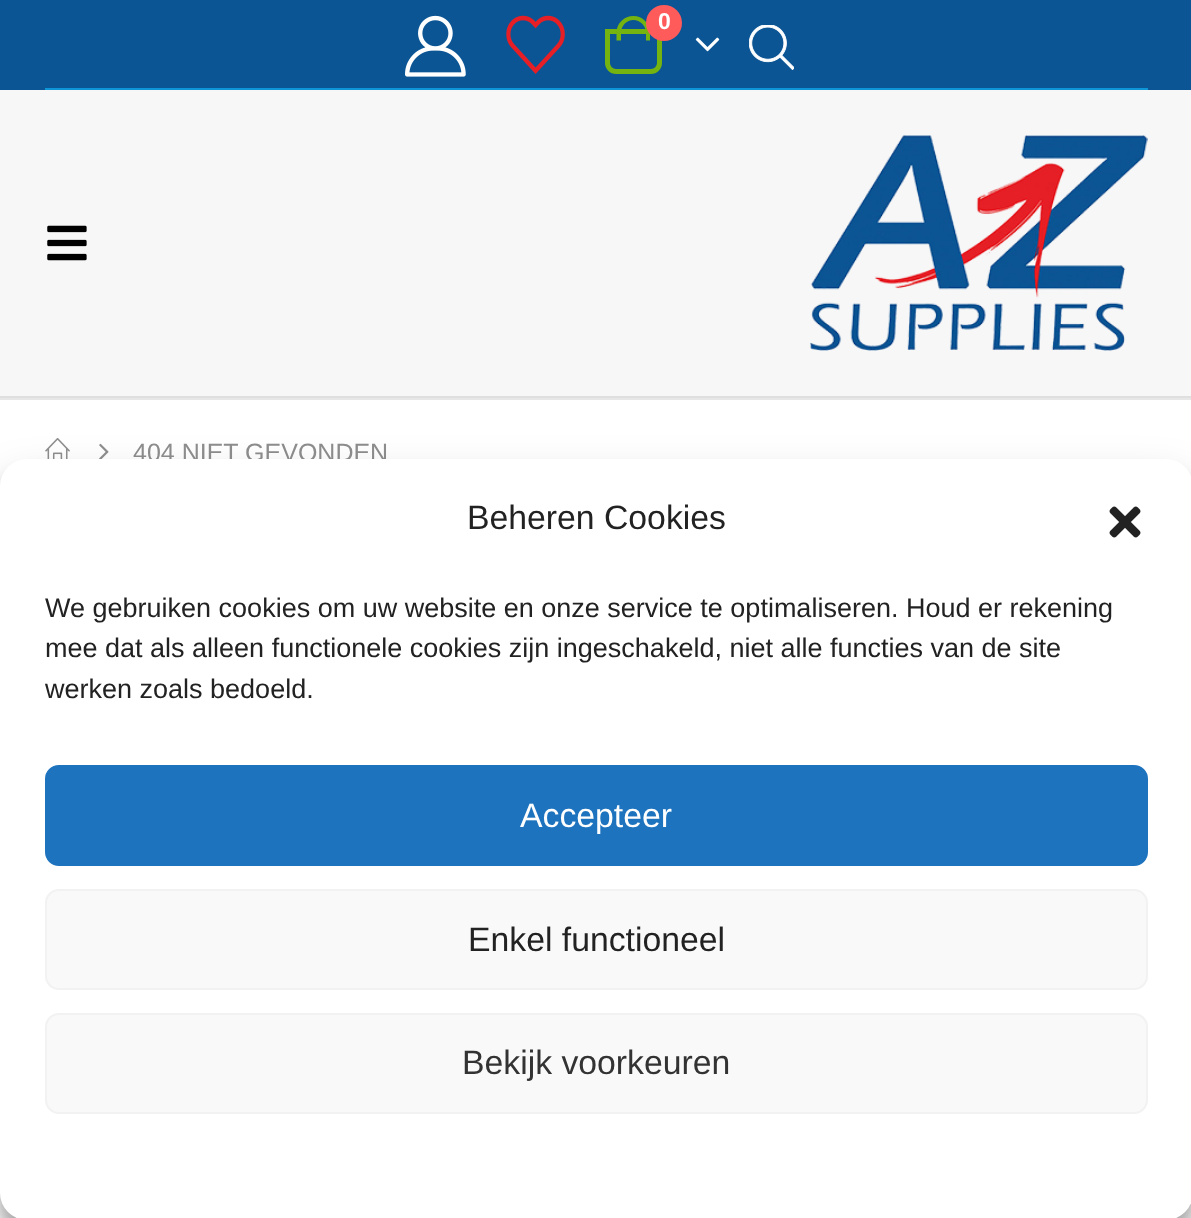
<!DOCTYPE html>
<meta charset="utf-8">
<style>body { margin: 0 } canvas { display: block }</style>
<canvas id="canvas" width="1191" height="1218"></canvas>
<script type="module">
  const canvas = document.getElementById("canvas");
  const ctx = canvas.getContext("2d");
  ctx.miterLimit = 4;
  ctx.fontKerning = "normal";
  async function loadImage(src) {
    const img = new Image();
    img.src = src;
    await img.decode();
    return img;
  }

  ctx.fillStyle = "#ffffff";
  ctx.fillRect(0, 0, 1191, 1218);
  ctx.fillStyle = "#e7e7e7";
  ctx.fillRect(0, 398, 1191, 2);
  ctx.fillStyle = "#0b5594";
  ctx.fillRect(0, 0, 1191, 90);
  ctx.drawImage(await loadImage("img1.png"), 405, 15, 61, 62);
  ctx.drawImage(await loadImage("img2.png"), 506, 15, 59, 59);
  ctx.beginPath();
  ctx.roundRect(607.5, 31.5, 52, 40, [0, 0, 8.5, 8.5]);
  ctx.strokeStyle = "#74b310";
  ctx.lineWidth = 5;
  ctx.stroke();
  ctx.fillStyle = "#74b310";
  ctx.beginPath();
  ctx.moveTo(633.5, 16);
  ctx.bezierCurveTo(642.5, 16, 650, 23.5, 650, 32.5);
  ctx.lineTo(650, 40.5);
  ctx.lineTo(616.5, 40.5);
  ctx.lineTo(616.5, 32.5);
  ctx.bezierCurveTo(616.5, 23.5, 624, 16, 633.5, 16);
  ctx.closePath();
  ctx.moveTo(633.5, 20);
  ctx.bezierCurveTo(640, 20, 646, 26, 646, 32.5);
  ctx.lineTo(646, 40.5);
  ctx.lineTo(621, 40.5);
  ctx.lineTo(621, 32.5);
  ctx.bezierCurveTo(621, 26, 626.5, 20, 633.5, 20);
  ctx.closePath();
  ctx.fill("evenodd");
  ctx.fillStyle = "#ff5b5b";
  ctx.beginPath();
  ctx.arc(664, 23, 18, 0, Math.PI * 2);
  ctx.fill();
  ctx.font = "bold 23px Liberation Sans";
  ctx.fillStyle = "#ffffff";
  ctx.fillText("0", 658, 29);
  ctx.drawImage(await loadImage("img3.png"), 695, 37, 25, 15);
  ctx.drawImage(await loadImage("img4.png"), 749, 25, 45, 45);
  ctx.fillStyle = "#0e95d8";
  ctx.fillRect(45, 88, 1103, 2);
  ctx.fillStyle = "#f7f7f7";
  ctx.fillRect(0, 90, 1191, 306);
  ctx.fillStyle = "#e0dfdf";
  ctx.fillRect(0, 396, 1191, 2);
  ctx.drawImage(await loadImage("img5.png"), 47, 225, 40, 36);
  ctx.drawImage(await loadImage("img6.png"), 810, 135, 338, 216);
  ctx.drawImage(await loadImage("img7.png"), 45, 438, 25, 21);
  ctx.drawImage(await loadImage("img8.png"), 99, 443, 10, 16);
  ctx.font = "25px Liberation Sans";
  ctx.fillStyle = "#8e8e8e";
  ctx.fillText("404 NIET GEVONDEN", 133, 461);
  ctx.fillStyle = "rgba(0, 0, 0, 0.23)";
  ctx.filter = "blur(7px)";
  ctx.beginPath();
  ctx.roundRect(0, 473, 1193, 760, 27);
  ctx.fill();
  ctx.filter = "none";
  ctx.fillStyle = "rgba(0, 0, 0, 0.19)";
  ctx.filter = "blur(22.5px)";
  ctx.beginPath();
  ctx.roundRect(0, 482, 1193, 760, 27);
  ctx.fill();
  ctx.filter = "none";
  ctx.fillStyle = "#ffffff";
  ctx.beginPath();
  ctx.roundRect(0, 459, 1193, 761, 27);
  ctx.fill();
  ctx.font = "33.75px Liberation Sans";
  ctx.fillStyle = "#222222";
  ctx.fillText("Beheren Cookies", 467, 529);
  ctx.drawImage(await loadImage("img9.png"), 1109, 506, 32, 32);
  ctx.font = "27px Liberation Sans";
  ctx.fillText("We gebruiken cookies om uw website en onze service te optimaliseren. Houd er rekening", 45, 617);
  ctx.fillText("mee dat als alleen functionele cookies zijn ingeschakeld, niet alle functies van de site", 45, 657);
  ctx.fillText("werken zoals bedoeld.", 45, 698);
  ctx.fillStyle = "#1e73be";
  ctx.beginPath();
  ctx.roundRect(46, 766, 1101, 99, 13);
  ctx.fill();
  ctx.strokeStyle = "#1e73be";
  ctx.lineWidth = 2;
  ctx.stroke();
  ctx.font = "33.75px Liberation Sans";
  ctx.fillStyle = "#ffffff";
  ctx.fillText("Accepteer", 520, 827);
  ctx.fillStyle = "#f9f9f9";
  ctx.beginPath();
  ctx.roundRect(46, 890, 1101, 99, 13);
  ctx.fill();
  ctx.strokeStyle = "#f2f2f2";
  ctx.stroke();
  ctx.fillStyle = "#222222";
  ctx.fillText("Enkel functioneel", 468, 951);
  ctx.fillStyle = "#f9f9f9";
  ctx.beginPath();
  ctx.roundRect(46, 1014, 1101, 99, 13);
  ctx.fill();
  ctx.stroke();
  ctx.fillStyle = "#333333";
  ctx.fillText("Bekijk voorkeuren", 462, 1074);
</script>
